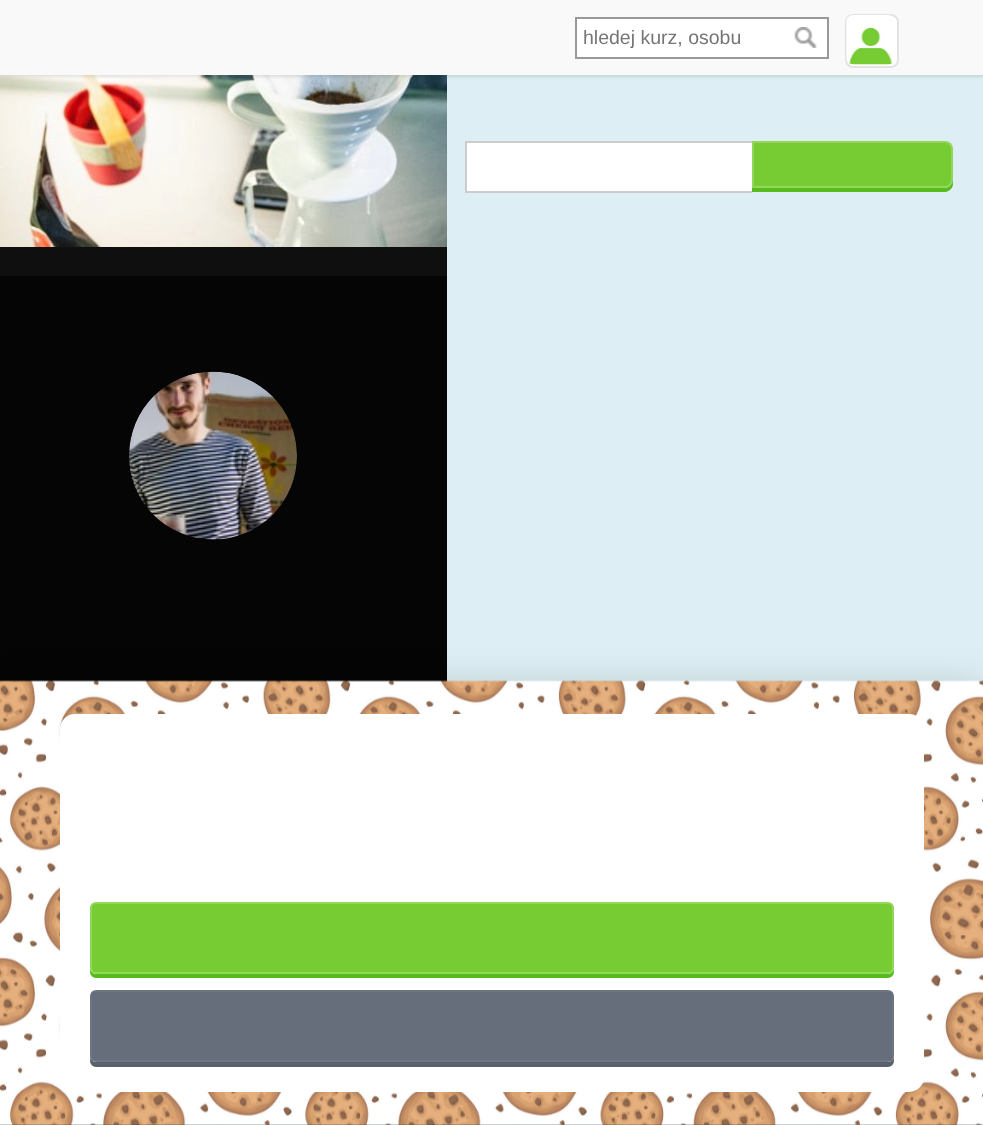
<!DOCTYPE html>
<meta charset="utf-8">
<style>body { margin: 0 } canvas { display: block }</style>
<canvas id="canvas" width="983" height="1125"></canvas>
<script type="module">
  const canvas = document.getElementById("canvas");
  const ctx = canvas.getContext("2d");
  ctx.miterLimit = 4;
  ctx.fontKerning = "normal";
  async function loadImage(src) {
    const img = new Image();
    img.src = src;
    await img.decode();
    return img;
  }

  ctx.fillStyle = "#ffffff";
  ctx.fillRect(0, 0, 983, 1125);
  ctx.drawImage(await loadImage("img1.png"), 0, 1124, 983, 1);
  ctx.drawImage(await loadImage("img4.png"), 0, 75, 447, 172);
  ctx.fillStyle = "#ddeff4";
  ctx.fillRect(447, 75, 536, 607);
  ctx.fillStyle = "rgba(0, 0, 0, 0.1)";
  ctx.filter = "blur(1.5px)";
  ctx.beginPath();
  ctx.rect(-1, -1, 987, 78);
  ctx.fill();
  ctx.filter = "none";
  ctx.fillStyle = "#f9f9f9";
  ctx.fillRect(0, 0, 983, 75);
  ctx.fillStyle = "#ffffff";
  ctx.fillRect(577, 19, 250, 38);
  ctx.fillStyle = "#999999";
  ctx.fillRect(575, 17, 253, 2);
  ctx.fillRect(575, 57, 211, 2);
  ctx.fillRect(575, 17, 2, 42);
  ctx.font = "19.5px Liberation Sans";
  ctx.fillStyle = "#757575";
  ctx.fillText("hledej kurz, osobu", 583, 44);
  ctx.drawImage(await loadImage("img2.png"), 794, 27, 23, 21);
  ctx.fillStyle = "#999999";
  ctx.fillRect(827, 17, 2, 42);
  ctx.fillRect(786, 57, 42, 2);
  ctx.fillStyle = "#ffffff";
  ctx.beginPath();
  ctx.roundRect(846, 15, 52, 52, 7);
  ctx.fill();
  ctx.strokeStyle = "#e3e3e3";
  ctx.lineWidth = 2;
  ctx.stroke();
  ctx.drawImage(await loadImage("img3.png"), 846, 15, 47, 50);
  ctx.fillStyle = "#0f0f0f";
  ctx.fillRect(0, 247, 447, 29);
  ctx.fillStyle = "#050505";
  ctx.fillRect(0, 276, 447, 406);
  ctx.drawImage(await loadImage("img5.png"), 129, 371, 168, 169);
  ctx.fillStyle = "#ffffff";
  ctx.fillRect(467, 143, 285, 48);
  ctx.fillStyle = "#cccccc";
  ctx.fillRect(465, 141, 287, 2);
  ctx.fillRect(465, 191, 287, 2);
  ctx.fillRect(465, 141, 2, 51);
  ctx.fillStyle = "#56bc1e";
  ctx.beginPath();
  ctx.moveTo(752, 188);
  ctx.lineTo(752, 192);
  ctx.lineTo(945, 192);
  ctx.bezierCurveTo(949, 192, 953, 188, 953, 184);
  ctx.lineTo(953, 154);
  ctx.lineTo(952, 151);
  ctx.lineTo(952, 180);
  ctx.bezierCurveTo(952, 184, 949, 188, 945, 188);
  ctx.closePath();
  ctx.fill();
  ctx.fillStyle = "#77cc33";
  ctx.beginPath();
  ctx.roundRect(752, 141, 201, 47, [0, 8, 8, 0]);
  ctx.fill();
  ctx.beginPath();
  ctx.roundRect(753, 142, 199, 45, [0, 7, 7, 0]);
  ctx.strokeStyle = "rgba(255, 255, 255, 0.2)";
  ctx.stroke();
  ctx.fillStyle = "rgba(2, 2, 3, 0.28)";
  ctx.filter = "blur(22.5px)";
  ctx.beginPath();
  ctx.rect(0, 696, 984, 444);
  ctx.fill();
  ctx.filter = "none";
  ctx.drawImage(await loadImage("img6.png"), 0, 680, 983, 445);
  ctx.fillStyle = "#ffffff";
  ctx.beginPath();
  ctx.roundRect(60, 714, 864, 378, 15);
  ctx.fill();
  ctx.fillStyle = "#56bc1e";
  ctx.beginPath();
  ctx.moveTo(90, 968);
  ctx.lineTo(90, 972);
  ctx.bezierCurveTo(90, 975, 93, 978, 96, 978);
  ctx.lineTo(888, 978);
  ctx.bezierCurveTo(891, 978, 894, 975, 894, 972);
  ctx.lineTo(894, 968);
  ctx.bezierCurveTo(894, 971, 891, 974, 888, 974);
  ctx.lineTo(96, 974);
  ctx.bezierCurveTo(93, 974, 90, 971, 90, 968);
  ctx.closePath();
  ctx.fill();
  ctx.fillStyle = "#77cc33";
  ctx.beginPath();
  ctx.roundRect(90, 902, 804, 72, 6);
  ctx.fill();
  ctx.beginPath();
  ctx.roundRect(91, 903, 802, 70, 5);
  ctx.stroke();
  ctx.fillStyle = "#5a616d";
  ctx.beginPath();
  ctx.moveTo(90, 1056);
  ctx.lineTo(90, 1061);
  ctx.bezierCurveTo(90, 1064, 93, 1067, 96, 1067);
  ctx.lineTo(888, 1067);
  ctx.bezierCurveTo(891, 1067, 894, 1064, 894, 1061);
  ctx.lineTo(894, 1056);
  ctx.bezierCurveTo(894, 1059, 891, 1062, 888, 1062);
  ctx.lineTo(96, 1062);
  ctx.bezierCurveTo(93, 1062, 90, 1059, 90, 1056);
  ctx.closePath();
  ctx.fill();
  ctx.fillStyle = "#666e7b";
  ctx.beginPath();
  ctx.roundRect(90, 990, 804, 72, 6);
  ctx.fill();
  ctx.strokeStyle = "rgba(255, 255, 255, 0.05)";
  ctx.strokeRect(91, 991, 802, 70);
</script>
